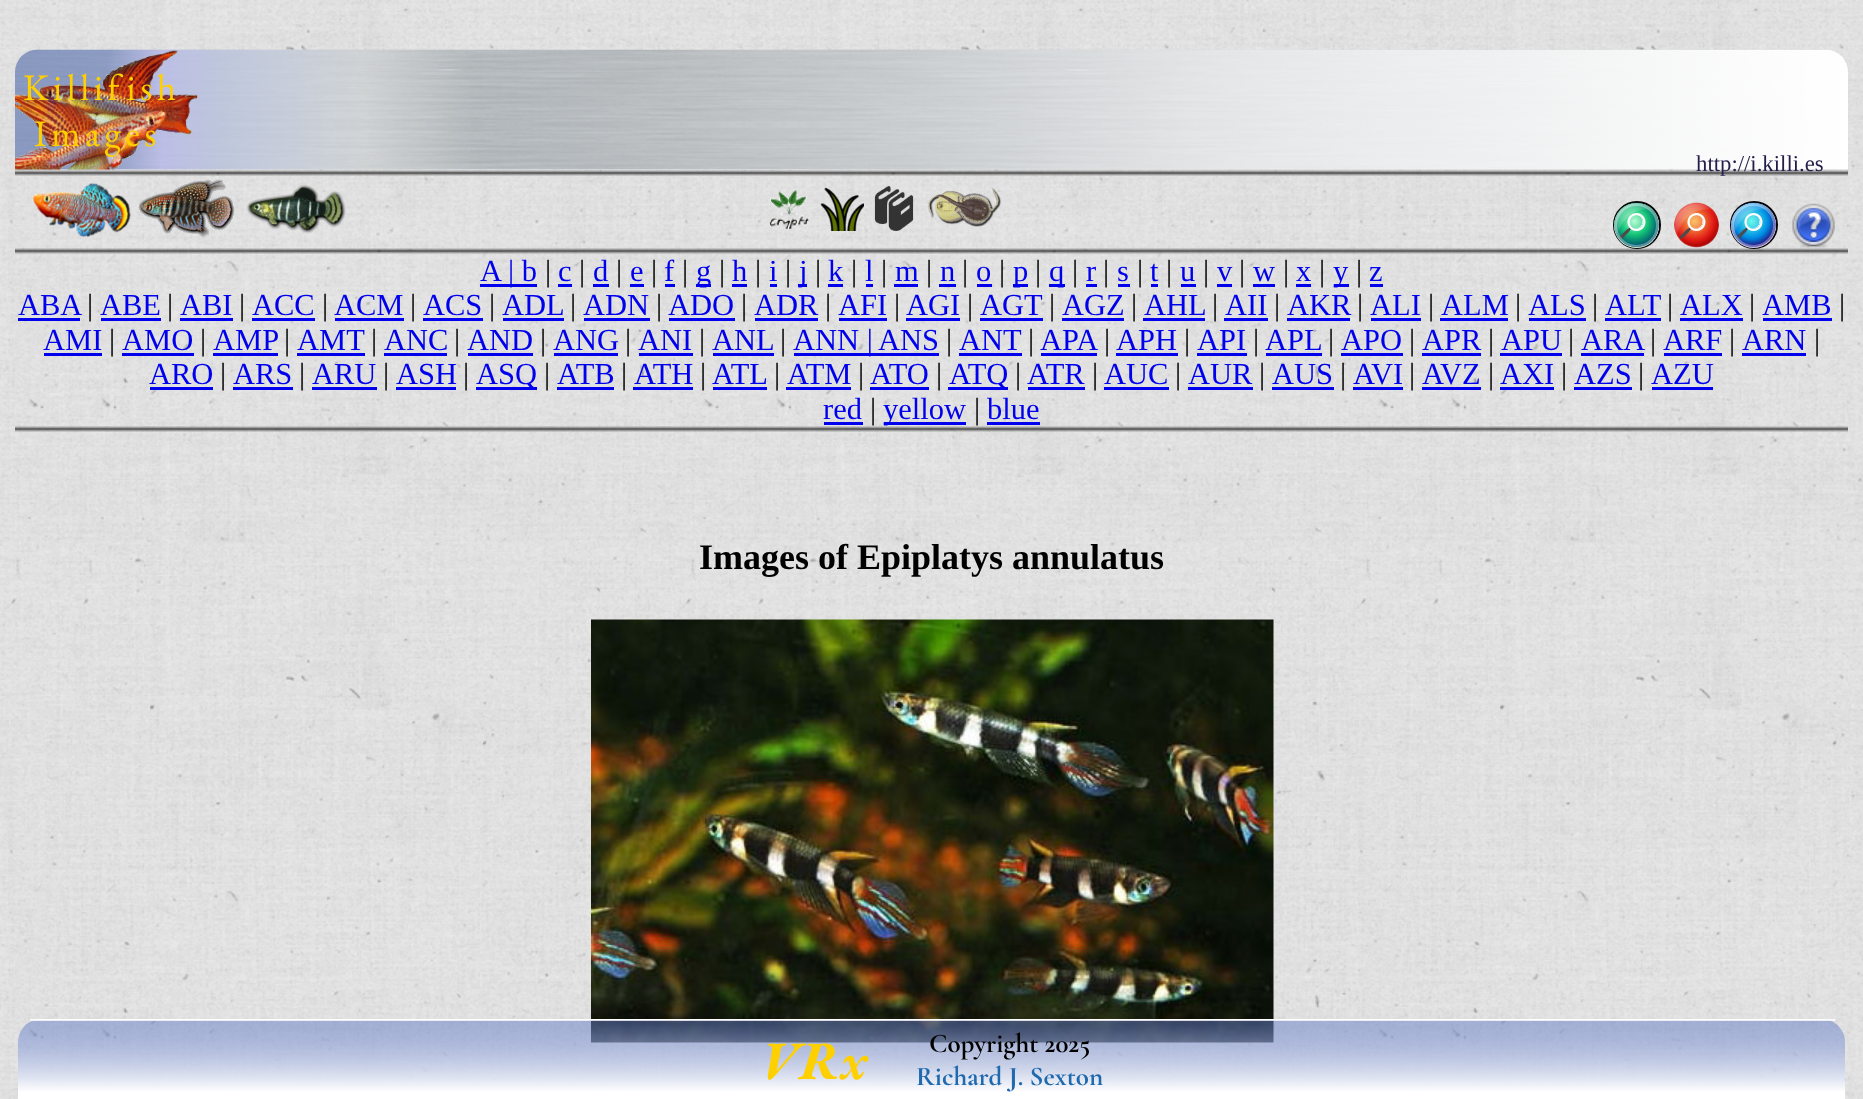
<!DOCTYPE html>
<meta charset="utf-8">
<style>body { margin: 0 } canvas { display: block }</style>
<canvas id="canvas" width="1863" height="1099"></canvas>
<script type="module">
  const canvas = document.getElementById("canvas");
  const ctx = canvas.getContext("2d");
  ctx.miterLimit = 4;
  ctx.fontKerning = "normal";
  async function loadImage(src) {
    const img = new Image();
    img.src = src;
    await img.decode();
    return img;
  }
  let gradient;

  ctx.fillStyle = "#ffffff";
  ctx.fillRect(0, 0, 1863, 1099);
  ctx.drawImage(await loadImage("img1.png"), 0, 0, 1863, 1099);
  ctx.drawImage(await loadImage("img2.png"), 15, 49, 1833, 121);
  ctx.drawImage(await loadImage("img3.png"), 15, 50, 183, 120);
  ctx.letterSpacing = "4.5px";
  ctx.font = "37.5px EB Garamond";
  ctx.fillStyle = "#ffd000";
  ctx.fillText("Killifish", 23, 100);
  ctx.fillText("Images", 34, 146);
  ctx.letterSpacing = "0px";
  ctx.font = "22.75px Liberation Serif";
  ctx.fillStyle = "#261c4a";
  ctx.fillText("http://i.killi.es", 1696, 171);
  ctx.beginPath();
  ctx.arc(1637, 225, 23, 0, Math.PI * 2);
  ctx.strokeStyle = "rgba(0, 0, 0, 0.99)";
  ctx.lineWidth = 2;
  ctx.stroke();
  ctx.fillStyle = "#d0ffd0";
  ctx.beginPath();
  ctx.arc(1636.5, 225.5, 22.5, 0, Math.PI * 2);
  ctx.fill();
  ctx.drawImage(await loadImage("img4.png"), 1614, 202, 45, 46);
  ctx.beginPath();
  ctx.arc(1636.5, 225.5, 21, 0, Math.PI * 2);
  ctx.strokeStyle = "rgba(255, 255, 255, 0.35)";
  ctx.lineWidth = 3;
  ctx.stroke();
  ctx.drawImage(await loadImage("img5.png"), 1674, 202, 45, 46);
  ctx.beginPath();
  ctx.arc(1754, 225, 23, 0, Math.PI * 2);
  ctx.strokeStyle = "rgba(0, 0, 0, 0.99)";
  ctx.lineWidth = 2;
  ctx.stroke();
  ctx.fillStyle = "#d0d0ff";
  ctx.beginPath();
  ctx.arc(1753.5, 225.5, 22.5, 0, Math.PI * 2);
  ctx.fill();
  ctx.drawImage(await loadImage("img6.png"), 1731, 202, 45, 46);
  ctx.beginPath();
  ctx.arc(1753.5, 225.5, 21, 0, Math.PI * 2);
  ctx.strokeStyle = "rgba(255, 255, 255, 0.35)";
  ctx.lineWidth = 3;
  ctx.stroke();
  ctx.drawImage(await loadImage("img7.png"), 1792, 203, 43, 45);
  ctx.drawImage(await loadImage("img8.png"), 33, 183, 98, 54);
  ctx.drawImage(await loadImage("img9.png"), 138, 179, 97, 58);
  ctx.drawImage(await loadImage("img10.png"), 246, 185, 100, 49);
  ctx.drawImage(await loadImage("img11.png"), 768, 189, 42, 41);
  ctx.drawImage(await loadImage("img12.png"), 820, 187, 44, 44);
  ctx.drawImage(await loadImage("img13.png"), 874, 186, 40, 45);
  ctx.drawImage(await loadImage("img14.png"), 928, 187, 73, 40);
  ctx.font = "30.5px Liberation Serif";
  ctx.fillStyle = "#0000ee";
  ctx.fillText("A", 480, 281);
  ctx.fillRect(480, 284, 57, 3);
  ctx.fillText("| b", 508, 281);
  ctx.fillStyle = "#000000";
  ctx.fillText("|", 545, 281);
  ctx.fillStyle = "#0000ee";
  ctx.fillText("c", 558, 281);
  ctx.fillRect(558, 284, 14, 3);
  ctx.fillStyle = "#000000";
  ctx.fillText("|", 579, 281);
  ctx.fillStyle = "#0000ee";
  ctx.fillText("d", 593, 281);
  ctx.fillRect(593, 284, 16, 3);
  ctx.fillStyle = "#000000";
  ctx.fillText("|", 616, 281);
  ctx.fillStyle = "#0000ee";
  ctx.fillText("e", 630, 281);
  ctx.fillRect(630, 284, 14, 3);
  ctx.fillStyle = "#000000";
  ctx.fillText("|", 651, 281);
  ctx.fillStyle = "#0000ee";
  ctx.fillText("f", 664, 281);
  ctx.fillRect(665, 284, 10, 3);
  ctx.fillStyle = "#000000";
  ctx.fillText("|", 682, 281);
  ctx.fillStyle = "#0000ee";
  ctx.fillRect(696, 284, 15, 3);
  ctx.fillText("g", 696, 281);
  ctx.fillStyle = "#000000";
  ctx.fillText("|", 719, 281);
  ctx.fillStyle = "#0000ee";
  ctx.fillText("h", 732, 281);
  ctx.fillRect(732, 284, 15, 3);
  ctx.fillStyle = "#000000";
  ctx.fillText("|", 755, 281);
  ctx.fillStyle = "#0000ee";
  ctx.fillText("i", 769, 281);
  ctx.fillRect(770, 284, 7, 3);
  ctx.fillStyle = "#000000";
  ctx.fillText("|", 785, 281);
  ctx.fillStyle = "#0000ee";
  ctx.fillRect(798, 284, 9, 3);
  ctx.fillText("j", 799, 281);
  ctx.fillStyle = "#000000";
  ctx.fillText("|", 815, 281);
  ctx.fillStyle = "#0000ee";
  ctx.fillText("k", 828, 281);
  ctx.fillRect(828, 284, 15, 3);
  ctx.fillStyle = "#000000";
  ctx.fillText("|", 851, 281);
  ctx.fillStyle = "#0000ee";
  ctx.fillText("l", 865, 281);
  ctx.fillRect(866, 284, 7, 3);
  ctx.fillStyle = "#000000";
  ctx.fillText("|", 881, 281);
  ctx.fillStyle = "#0000ee";
  ctx.fillText("m", 895, 281);
  ctx.fillRect(894, 284, 24, 3);
  ctx.fillStyle = "#000000";
  ctx.fillText("|", 926, 281);
  ctx.fillStyle = "#0000ee";
  ctx.fillText("n", 940, 281);
  ctx.fillRect(939, 284, 17, 3);
  ctx.fillStyle = "#000000";
  ctx.fillText("|", 962, 281);
  ctx.fillStyle = "#0000ee";
  ctx.fillText("o", 976, 281);
  ctx.fillRect(977, 284, 15, 3);
  ctx.fillStyle = "#000000";
  ctx.fillText("|", 999, 281);
  ctx.fillStyle = "#0000ee";
  ctx.fillRect(1013, 284, 15, 3);
  ctx.fillText("p", 1013, 281);
  ctx.fillStyle = "#000000";
  ctx.fillText("|", 1035, 281);
  ctx.fillStyle = "#0000ee";
  ctx.fillRect(1049, 284, 16, 3);
  ctx.fillText("q", 1049, 281);
  ctx.fillStyle = "#000000";
  ctx.fillText("|", 1072, 281);
  ctx.fillStyle = "#0000ee";
  ctx.fillText("r", 1086, 281);
  ctx.fillRect(1086, 284, 11, 3);
  ctx.fillStyle = "#000000";
  ctx.fillText("|", 1103, 281);
  ctx.fillStyle = "#0000ee";
  ctx.fillText("s", 1117, 281);
  ctx.fillRect(1118, 284, 12, 3);
  ctx.fillStyle = "#000000";
  ctx.fillText("|", 1137, 281);
  ctx.fillStyle = "#0000ee";
  ctx.fillText("t", 1150, 281);
  ctx.fillRect(1151, 284, 7, 3);
  ctx.fillStyle = "#000000";
  ctx.fillText("|", 1166, 281);
  ctx.fillStyle = "#0000ee";
  ctx.fillText("u", 1180, 281);
  ctx.fillRect(1181, 284, 15, 3);
  ctx.fillStyle = "#000000";
  ctx.fillText("|", 1203, 281);
  ctx.fillStyle = "#0000ee";
  ctx.fillText("v", 1217, 281);
  ctx.fillRect(1217, 284, 15, 3);
  ctx.fillStyle = "#000000";
  ctx.fillText("|", 1239, 281);
  ctx.fillStyle = "#0000ee";
  ctx.fillText("w", 1253, 281);
  ctx.fillRect(1253, 284, 22, 3);
  ctx.fillStyle = "#000000";
  ctx.fillText("|", 1283, 281);
  ctx.fillStyle = "#0000ee";
  ctx.fillText("x", 1296, 281);
  ctx.fillRect(1296, 284, 15, 3);
  ctx.fillStyle = "#000000";
  ctx.fillText("|", 1319, 281);
  ctx.fillStyle = "#0000ee";
  ctx.fillRect(1334, 284, 15, 3);
  ctx.fillText("y", 1333, 281);
  ctx.fillStyle = "#000000";
  ctx.fillText("|", 1356, 281);
  ctx.fillStyle = "#0000ee";
  ctx.fillText("z", 1369, 281);
  ctx.fillRect(1370, 284, 13, 3);
  ctx.fillText("ABA", 18, 315);
  ctx.fillRect(18, 318, 62, 3);
  ctx.fillStyle = "#000000";
  ctx.fillText("|", 87, 315);
  ctx.fillStyle = "#0000ee";
  ctx.fillText("ABE", 100, 315);
  ctx.fillRect(101, 318, 60, 3);
  ctx.fillStyle = "#000000";
  ctx.fillText("|", 167, 315);
  ctx.fillStyle = "#0000ee";
  ctx.fillText("ABI", 180, 315);
  ctx.fillRect(180, 318, 53, 3);
  ctx.fillStyle = "#000000";
  ctx.fillText("|", 239, 315);
  ctx.fillStyle = "#0000ee";
  ctx.fillText("ACC", 252, 315);
  ctx.fillRect(252, 318, 63, 3);
  ctx.fillStyle = "#000000";
  ctx.fillText("|", 322, 315);
  ctx.fillStyle = "#0000ee";
  ctx.fillText("ACM", 334, 315);
  ctx.fillRect(335, 318, 69, 3);
  ctx.fillStyle = "#000000";
  ctx.fillText("|", 410, 315);
  ctx.fillStyle = "#0000ee";
  ctx.fillText("ACS", 423, 315);
  ctx.fillRect(423, 318, 60, 3);
  ctx.fillStyle = "#000000";
  ctx.fillText("|", 489, 315);
  ctx.fillStyle = "#0000ee";
  ctx.fillText("ADL", 502, 315);
  ctx.fillRect(503, 318, 61, 3);
  ctx.fillStyle = "#000000";
  ctx.fillText("|", 570, 315);
  ctx.fillStyle = "#0000ee";
  ctx.fillText("ADN", 583, 315);
  ctx.fillRect(584, 318, 66, 3);
  ctx.fillStyle = "#000000";
  ctx.fillText("|", 656, 315);
  ctx.fillStyle = "#0000ee";
  ctx.fillText("ADO", 668, 315);
  ctx.fillRect(669, 318, 66, 3);
  ctx.fillStyle = "#000000";
  ctx.fillText("|", 741, 315);
  ctx.fillStyle = "#0000ee";
  ctx.fillText("ADR", 754, 315);
  ctx.fillRect(755, 318, 63, 3);
  ctx.fillStyle = "#000000";
  ctx.fillText("|", 825, 315);
  ctx.fillStyle = "#0000ee";
  ctx.fillText("AFI", 838, 315);
  ctx.fillRect(839, 318, 48, 3);
  ctx.fillStyle = "#000000";
  ctx.fillText("|", 894, 315);
  ctx.fillStyle = "#0000ee";
  ctx.fillText("AGI", 906, 315);
  ctx.fillRect(906, 318, 54, 3);
  ctx.fillStyle = "#000000";
  ctx.fillText("|", 967, 315);
  ctx.fillStyle = "#0000ee";
  ctx.fillText("AGT", 980, 315);
  ctx.fillRect(980, 318, 63, 3);
  ctx.fillStyle = "#000000";
  ctx.fillText("|", 1049, 315);
  ctx.fillStyle = "#0000ee";
  ctx.fillText("AGZ", 1062, 315);
  ctx.fillRect(1062, 318, 62, 3);
  ctx.fillStyle = "#000000";
  ctx.fillText("|", 1131, 315);
  ctx.fillStyle = "#0000ee";
  ctx.fillText("AHL", 1144, 315);
  ctx.fillRect(1143, 318, 62, 3);
  ctx.fillStyle = "#000000";
  ctx.fillText("|", 1212, 315);
  ctx.fillStyle = "#0000ee";
  ctx.fillText("AII", 1225, 315);
  ctx.fillRect(1224, 318, 44, 3);
  ctx.fillStyle = "#000000";
  ctx.fillText("|", 1274, 315);
  ctx.fillStyle = "#0000ee";
  ctx.fillText("AKR", 1287, 315);
  ctx.fillRect(1287, 318, 63, 3);
  ctx.fillStyle = "#000000";
  ctx.fillText("|", 1357, 315);
  ctx.fillStyle = "#0000ee";
  ctx.fillText("ALI", 1370, 315);
  ctx.fillRect(1371, 318, 50, 3);
  ctx.fillStyle = "#000000";
  ctx.fillText("|", 1428, 315);
  ctx.fillStyle = "#0000ee";
  ctx.fillText("ALM", 1441, 315);
  ctx.fillRect(1440, 318, 68, 3);
  ctx.fillStyle = "#000000";
  ctx.fillText("|", 1515, 315);
  ctx.fillStyle = "#0000ee";
  ctx.fillText("ALS", 1528, 315);
  ctx.fillRect(1529, 318, 57, 3);
  ctx.fillStyle = "#000000";
  ctx.fillText("|", 1592, 315);
  ctx.fillStyle = "#0000ee";
  ctx.fillText("ALT", 1605, 315);
  ctx.fillRect(1605, 318, 56, 3);
  ctx.fillStyle = "#000000";
  ctx.fillText("|", 1667, 315);
  ctx.fillStyle = "#0000ee";
  ctx.fillText("ALX", 1680, 315);
  ctx.fillRect(1680, 318, 63, 3);
  ctx.fillStyle = "#000000";
  ctx.fillText("|", 1749, 315);
  ctx.fillStyle = "#0000ee";
  ctx.fillText("AMB", 1762, 315);
  ctx.fillRect(1763, 318, 69, 3);
  ctx.fillStyle = "#000000";
  ctx.fillText("|", 1839, 315);
  ctx.fillStyle = "#0000ee";
  ctx.fillText("AMI", 43, 350);
  ctx.fillRect(44, 353, 58, 3);
  ctx.fillStyle = "#000000";
  ctx.fillText("|", 109, 350);
  ctx.fillStyle = "#0000ee";
  ctx.fillText("AMO", 122, 350);
  ctx.fillRect(122, 353, 72, 3);
  ctx.fillStyle = "#000000";
  ctx.fillText("|", 200, 350);
  ctx.fillStyle = "#0000ee";
  ctx.fillText("AMP", 213, 350);
  ctx.fillRect(213, 353, 65, 3);
  ctx.fillStyle = "#000000";
  ctx.fillText("|", 284, 350);
  ctx.fillStyle = "#0000ee";
  ctx.fillText("AMT", 297, 350);
  ctx.fillRect(297, 353, 68, 3);
  ctx.fillStyle = "#000000";
  ctx.fillText("|", 371, 350);
  ctx.fillStyle = "#0000ee";
  ctx.fillText("ANC", 384, 350);
  ctx.fillRect(384, 353, 63, 3);
  ctx.fillStyle = "#000000";
  ctx.fillText("|", 454, 350);
  ctx.fillStyle = "#0000ee";
  ctx.fillText("AND", 467, 350);
  ctx.fillRect(468, 353, 65, 3);
  ctx.fillStyle = "#000000";
  ctx.fillText("|", 540, 350);
  ctx.fillStyle = "#0000ee";
  ctx.fillText("ANG", 553, 350);
  ctx.fillRect(554, 353, 64, 3);
  ctx.fillStyle = "#000000";
  ctx.fillText("|", 625, 350);
  ctx.fillStyle = "#0000ee";
  ctx.fillText("ANI", 638, 350);
  ctx.fillRect(639, 353, 54, 3);
  ctx.fillStyle = "#000000";
  ctx.fillText("|", 699, 350);
  ctx.fillStyle = "#0000ee";
  ctx.fillText("ANL", 712, 350);
  ctx.fillRect(713, 353, 61, 3);
  ctx.fillStyle = "#000000";
  ctx.fillText("|", 780, 350);
  ctx.fillStyle = "#0000ee";
  ctx.fillRect(794, 353, 145, 3);
  ctx.fillText("ANN |", 793, 350);
  ctx.fillText("ANS", 878, 350);
  ctx.fillStyle = "#000000";
  ctx.fillText("|", 946, 350);
  ctx.fillStyle = "#0000ee";
  ctx.fillText("ANT", 959, 350);
  ctx.fillRect(959, 353, 63, 3);
  ctx.fillStyle = "#000000";
  ctx.fillText("|", 1028, 350);
  ctx.fillStyle = "#0000ee";
  ctx.fillText("APA", 1040, 350);
  ctx.fillRect(1041, 353, 56, 3);
  ctx.fillStyle = "#000000";
  ctx.fillText("|", 1104, 350);
  ctx.fillStyle = "#0000ee";
  ctx.fillText("APH", 1116, 350);
  ctx.fillRect(1116, 353, 62, 3);
  ctx.fillStyle = "#000000";
  ctx.fillText("|", 1184, 350);
  ctx.fillStyle = "#0000ee";
  ctx.fillText("API", 1197, 350);
  ctx.fillRect(1197, 353, 50, 3);
  ctx.fillStyle = "#000000";
  ctx.fillText("|", 1253, 350);
  ctx.fillStyle = "#0000ee";
  ctx.fillText("APL", 1265, 350);
  ctx.fillRect(1266, 353, 56, 3);
  ctx.fillStyle = "#000000";
  ctx.fillText("|", 1328, 350);
  ctx.fillStyle = "#0000ee";
  ctx.fillText("APO", 1341, 350);
  ctx.fillRect(1341, 353, 62, 3);
  ctx.fillStyle = "#000000";
  ctx.fillText("|", 1409, 350);
  ctx.fillStyle = "#0000ee";
  ctx.fillText("APR", 1422, 350);
  ctx.fillRect(1422, 353, 59, 3);
  ctx.fillStyle = "#000000";
  ctx.fillText("|", 1488, 350);
  ctx.fillStyle = "#0000ee";
  ctx.fillText("APU", 1501, 350);
  ctx.fillRect(1500, 353, 62, 3);
  ctx.fillStyle = "#000000";
  ctx.fillText("|", 1568, 350);
  ctx.fillStyle = "#0000ee";
  ctx.fillText("ARA", 1581, 350);
  ctx.fillRect(1581, 353, 63, 3);
  ctx.fillStyle = "#000000";
  ctx.fillText("|", 1650, 350);
  ctx.fillStyle = "#0000ee";
  ctx.fillText("ARF", 1663, 350);
  ctx.fillRect(1664, 353, 58, 3);
  ctx.fillStyle = "#000000";
  ctx.fillText("|", 1729, 350);
  ctx.fillStyle = "#0000ee";
  ctx.fillText("ARN", 1742, 350);
  ctx.fillRect(1742, 353, 64, 3);
  ctx.fillStyle = "#000000";
  ctx.fillText("|", 1814, 350);
  ctx.fillStyle = "#0000ee";
  ctx.fillText("ARO", 149, 384);
  ctx.fillRect(150, 387, 63, 3);
  ctx.fillStyle = "#000000";
  ctx.fillText("|", 220, 384);
  ctx.fillStyle = "#0000ee";
  ctx.fillText("ARS", 233, 384);
  ctx.fillRect(233, 387, 60, 3);
  ctx.fillStyle = "#000000";
  ctx.fillText("|", 299, 384);
  ctx.fillStyle = "#0000ee";
  ctx.fillText("ARU", 312, 384);
  ctx.fillRect(312, 387, 65, 3);
  ctx.fillStyle = "#000000";
  ctx.fillText("|", 383, 384);
  ctx.fillStyle = "#0000ee";
  ctx.fillText("ASH", 396, 384);
  ctx.fillRect(396, 387, 60, 3);
  ctx.fillStyle = "#000000";
  ctx.fillText("|", 463, 384);
  ctx.fillStyle = "#0000ee";
  ctx.fillRect(476, 387, 61, 3);
  ctx.fillText("ASQ", 476, 384);
  ctx.fillStyle = "#000000";
  ctx.fillText("|", 544, 384);
  ctx.fillStyle = "#0000ee";
  ctx.fillText("ATB", 557, 384);
  ctx.fillRect(557, 387, 57, 3);
  ctx.fillStyle = "#000000";
  ctx.fillText("|", 621, 384);
  ctx.fillStyle = "#0000ee";
  ctx.fillText("ATH", 634, 384);
  ctx.fillRect(633, 387, 60, 3);
  ctx.fillStyle = "#000000";
  ctx.fillText("|", 700, 384);
  ctx.fillStyle = "#0000ee";
  ctx.fillText("ATL", 712, 384);
  ctx.fillRect(713, 387, 54, 3);
  ctx.fillStyle = "#000000";
  ctx.fillText("|", 774, 384);
  ctx.fillStyle = "#0000ee";
  ctx.fillText("ATM", 787, 384);
  ctx.fillRect(786, 387, 65, 3);
  ctx.fillStyle = "#000000";
  ctx.fillText("|", 858, 384);
  ctx.fillStyle = "#0000ee";
  ctx.fillText("ATO", 870, 384);
  ctx.fillRect(870, 387, 59, 3);
  ctx.fillStyle = "#000000";
  ctx.fillText("|", 936, 384);
  ctx.fillStyle = "#0000ee";
  ctx.fillRect(948, 387, 60, 3);
  ctx.fillText("ATQ", 949, 384);
  ctx.fillStyle = "#000000";
  ctx.fillText("|", 1015, 384);
  ctx.fillStyle = "#0000ee";
  ctx.fillText("ATR", 1027, 384);
  ctx.fillRect(1028, 387, 57, 3);
  ctx.fillStyle = "#000000";
  ctx.fillText("|", 1092, 384);
  ctx.fillStyle = "#0000ee";
  ctx.fillText("AUC", 1104, 384);
  ctx.fillRect(1104, 387, 65, 3);
  ctx.fillStyle = "#000000";
  ctx.fillText("|", 1175, 384);
  ctx.fillStyle = "#0000ee";
  ctx.fillText("AUR", 1188, 384);
  ctx.fillRect(1188, 387, 65, 3);
  ctx.fillStyle = "#000000";
  ctx.fillText("|", 1259, 384);
  ctx.fillStyle = "#0000ee";
  ctx.fillText("AUS", 1272, 384);
  ctx.fillRect(1272, 387, 62, 3);
  ctx.fillStyle = "#000000";
  ctx.fillText("|", 1340, 384);
  ctx.fillStyle = "#0000ee";
  ctx.fillText("AVI", 1353, 384);
  ctx.fillRect(1353, 387, 50, 3);
  ctx.fillStyle = "#000000";
  ctx.fillText("|", 1409, 384);
  ctx.fillStyle = "#0000ee";
  ctx.fillText("AVZ", 1422, 384);
  ctx.fillRect(1422, 387, 59, 3);
  ctx.fillStyle = "#000000";
  ctx.fillText("|", 1488, 384);
  ctx.fillStyle = "#0000ee";
  ctx.fillText("AXI", 1500, 384);
  ctx.fillRect(1500, 387, 54, 3);
  ctx.fillStyle = "#000000";
  ctx.fillText("|", 1561, 384);
  ctx.fillStyle = "#0000ee";
  ctx.fillText("AZS", 1574, 384);
  ctx.fillRect(1574, 387, 58, 3);
  ctx.fillStyle = "#000000";
  ctx.fillText("|", 1638, 384);
  ctx.fillStyle = "#0000ee";
  ctx.fillText("AZU", 1651, 384);
  ctx.fillRect(1652, 387, 61, 3);
  ctx.fillText("red", 823, 419);
  ctx.fillRect(824, 422, 39, 3);
  ctx.fillStyle = "#000000";
  ctx.fillText("|", 870, 419);
  ctx.fillStyle = "#0000ee";
  ctx.fillRect(884, 422, 82, 3);
  ctx.fillText("yellow", 883, 419);
  ctx.fillStyle = "#000000";
  ctx.fillText("|", 974, 419);
  ctx.fillStyle = "#0000ee";
  ctx.fillText("blue", 987, 419);
  ctx.fillRect(987, 422, 53, 3);
  ctx.font = "bold 36px Liberation Serif";
  ctx.fillStyle = "#000000";
  ctx.fillText("Images of Epiplatys annulatus", 699, 569);
  ctx.drawImage(await loadImage("img15.png"), 591, 619, 683, 424);
  ctx.save();
  ctx.beginPath();
  ctx.moveTo(41, 1019);
  ctx.lineTo(1822, 1019);
  ctx.bezierCurveTo(1834.5, 1019, 1845, 1029.5, 1845, 1042);
  ctx.lineTo(1845, 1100);
  ctx.lineTo(18, 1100);
  ctx.lineTo(18, 1042);
  ctx.bezierCurveTo(18, 1029.5, 28.5, 1019, 41, 1019);
  ctx.closePath();
  ctx.clip();
  gradient = ctx.createLinearGradient(932, 940, 932, 1020);
  gradient.addColorStop(0.05, "rgba(101, 126, 199, 0.5)");
  gradient.addColorStop(0.9, "#ffffff");
  gradient.addColorStop(1, "#ffffff");
  ctx.fillStyle = gradient;
  ctx.fillRect(34, 1019, 1795, 1);
  gradient = ctx.createLinearGradient(932, 1020, 932, 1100);
  gradient.addColorStop(0.05, "rgba(101, 126, 199, 0.5)");
  gradient.addColorStop(0.9, "#ffffff");
  gradient.addColorStop(1, "#ffffff");
  ctx.fillStyle = gradient;
  ctx.fillRect(18, 1020, 1827, 79);
  ctx.restore();
  ctx.fillStyle = "rgba(255, 255, 255, 0.8)";
  ctx.fillRect(30, 1019, 1805, 2);
  ctx.font = "italic bold 54px EB Garamond";
  ctx.fillStyle = "#ffd000";
  ctx.fillText("VRx", 760, 1079);
  ctx.font = "bold 27px Cormorant Garamond";
  ctx.fillStyle = "#000000";
  ctx.fillText("Copyright 2025", 929, 1052);
  ctx.fillStyle = "#1f69af";
  ctx.fillText("Richard J. Sexton", 916, 1085);
</script>
